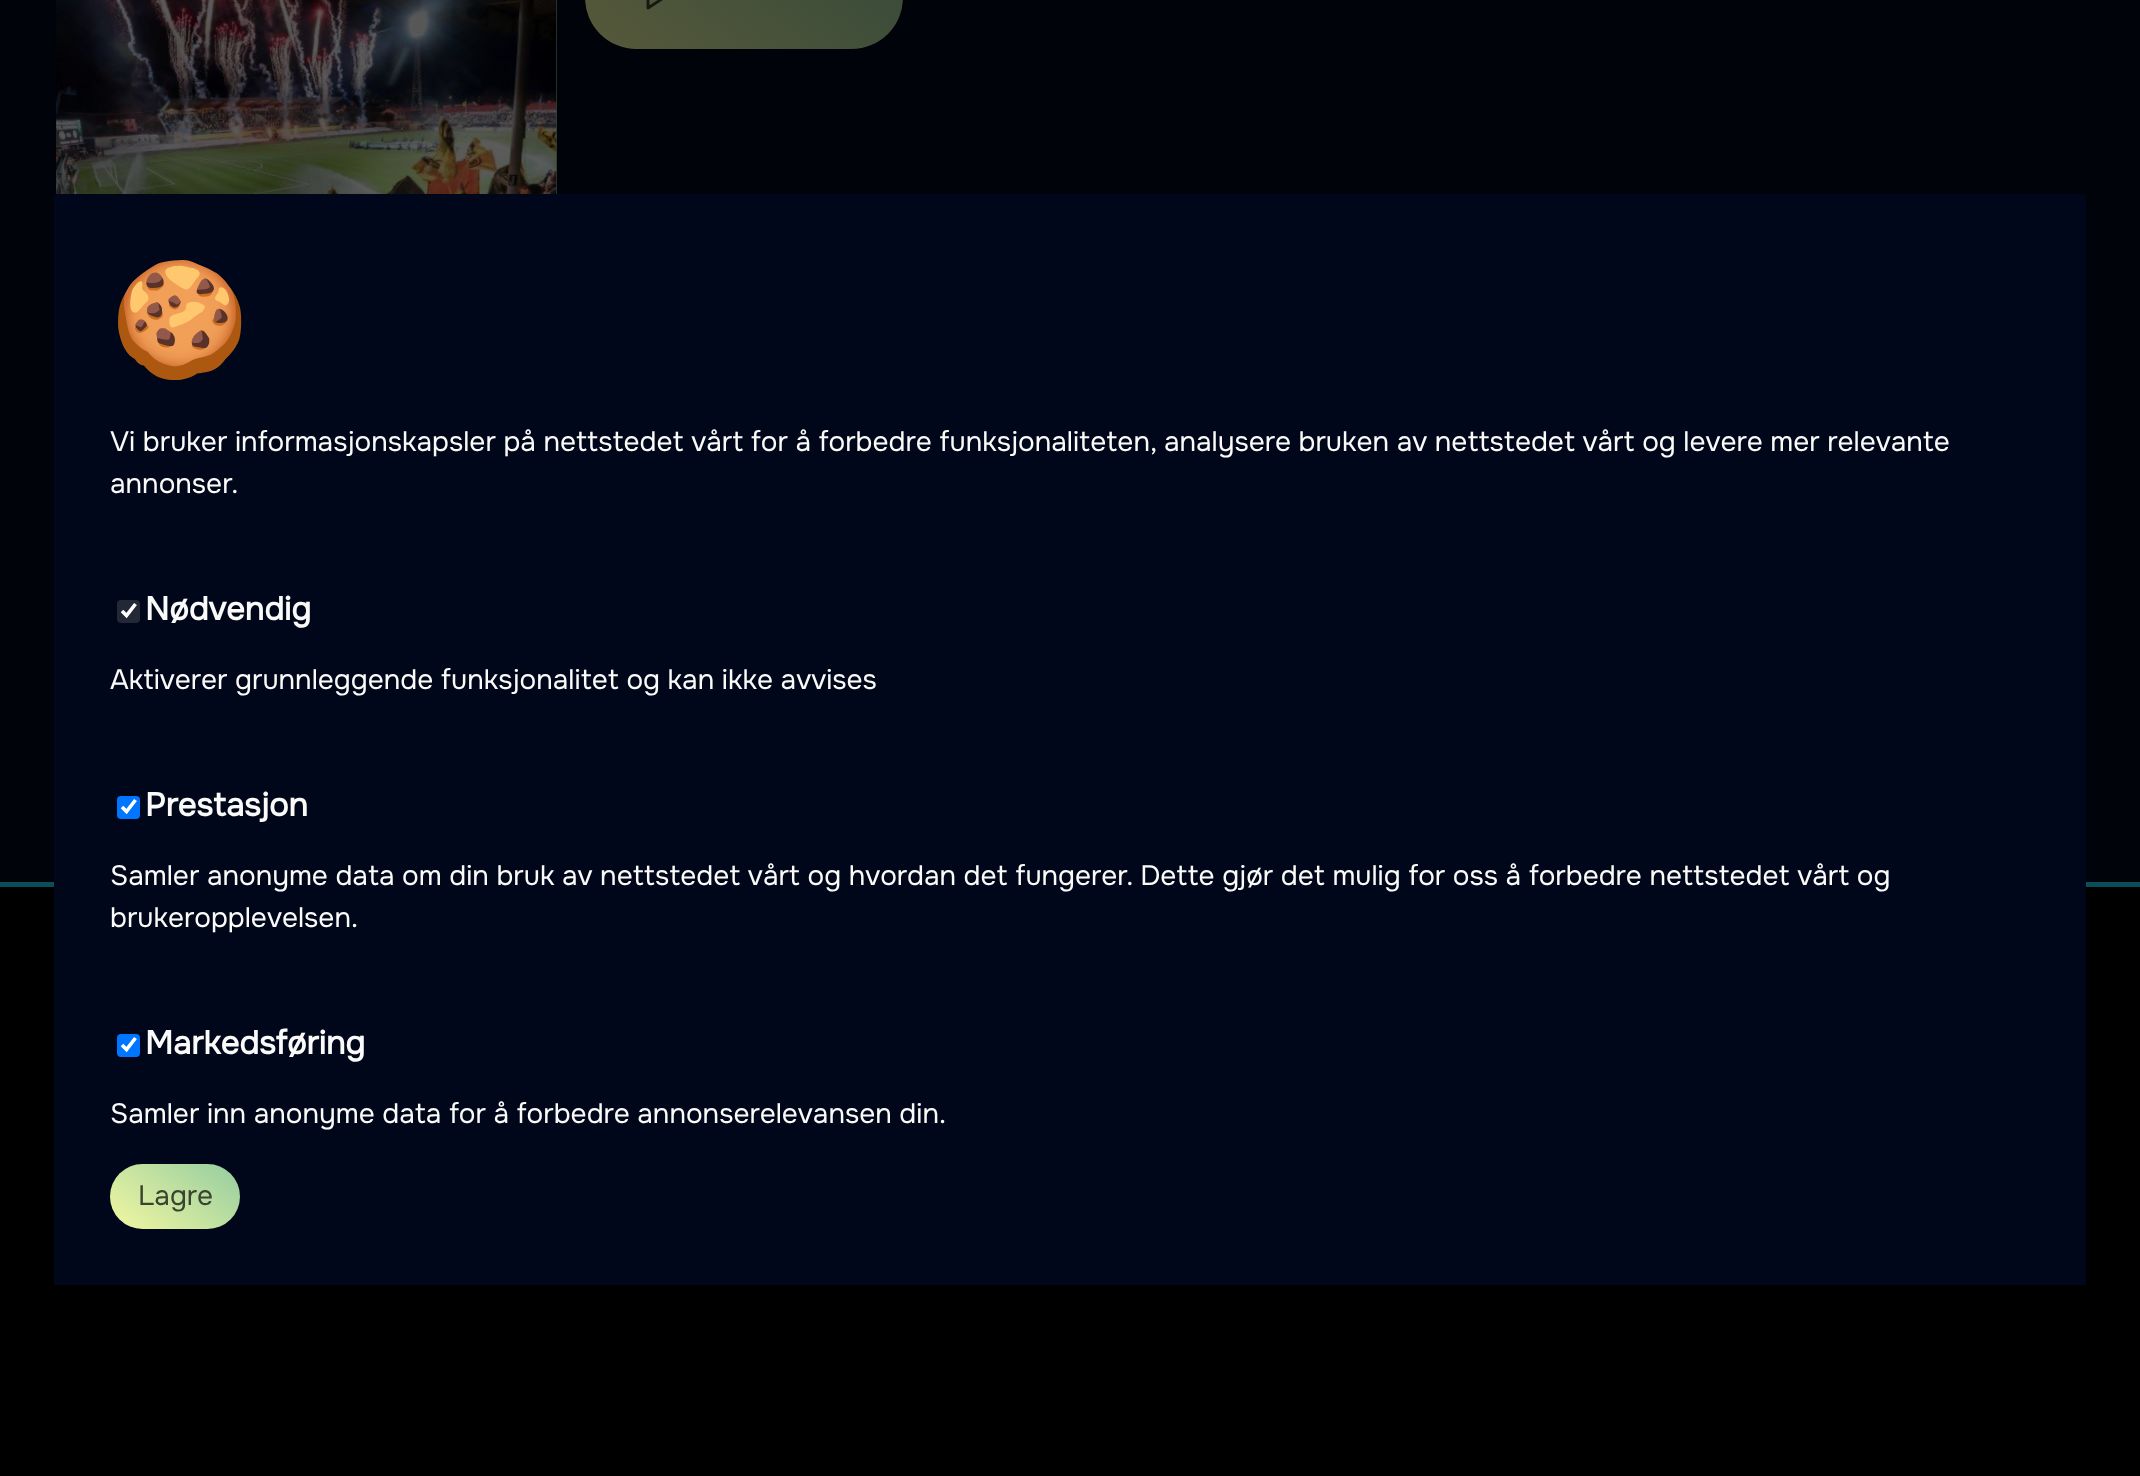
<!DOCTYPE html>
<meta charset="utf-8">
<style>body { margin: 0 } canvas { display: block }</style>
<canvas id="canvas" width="2140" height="1476"></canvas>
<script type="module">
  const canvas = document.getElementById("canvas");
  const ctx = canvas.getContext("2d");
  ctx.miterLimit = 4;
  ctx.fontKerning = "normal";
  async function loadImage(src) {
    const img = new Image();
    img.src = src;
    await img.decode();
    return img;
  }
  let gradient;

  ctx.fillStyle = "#ffffff";
  ctx.fillRect(0, 0, 2140, 1476);
  gradient = ctx.createLinearGradient(1070, -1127, 1070, 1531);
  gradient.addColorStop(0.04, "#000b15");
  gradient.addColorStop(0.15, "#01070c");
  gradient.addColorStop(0.5, "#000309");
  ctx.fillStyle = gradient;
  ctx.fillRect(0, 735, 2140, 147);
  ctx.fillStyle = "#000309";
  ctx.fillRect(0, 0, 2140, 735);
  gradient = ctx.createLinearGradient(56, 191, 1057, 191);
  gradient.addColorStop(0.14, "#0f2d2d");
  gradient.addColorStop(1, "#57593a");
  ctx.fillStyle = gradient;
  ctx.fillRect(556, 0, 1, 194);
  ctx.drawImage(await loadImage("img1.png"), 56, 0, 501, 194);
  gradient = ctx.createLinearGradient(995, -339, 660, 106);
  gradient.addColorStop(0, "#133a39");
  gradient.addColorStop(1, "#57593a");
  ctx.fillStyle = gradient;
  ctx.beginPath();
  ctx.roundRect(585, -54, 318, 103, 54);
  ctx.fill();
  ctx.beginPath();
  ctx.moveTo(648, -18.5);
  ctx.lineTo(668, -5);
  ctx.lineTo(648, 8);
  ctx.closePath();
  ctx.strokeStyle = "rgba(0, 0, 0, 0.7)";
  ctx.lineWidth = 2.9;
  ctx.lineCap = "round";
  ctx.lineJoin = "round";
  ctx.stroke();
  ctx.fillStyle = "#000000";
  ctx.fillRect(0, 887, 2140, 589);
  ctx.fillStyle = "#094e59";
  ctx.fillRect(0, 882, 2140, 5);
  ctx.fillStyle = "#00071a";
  ctx.fillRect(54, 194, 2032, 1091);
  ctx.font = "bold 112px Noto Color Emoji";
  ctx.fillStyle = "#fafaf9";
  ctx.fillText("🍪", 110, 358);
  ctx.font = "28px Onest";
  ctx.fillText("Vi bruker informasjonskapsler på nettstedet vårt for å forbedre funksjonaliteten, analysere bruken av nettstedet vårt og levere mer relevante", 110, 451);
  ctx.fillText("annonser.", 110, 493);
  ctx.fillStyle = "#232836";
  ctx.beginPath();
  ctx.roundRect(117, 600, 23, 23, 4);
  ctx.fill();
  ctx.beginPath();
  ctx.moveTo(122, 611);
  ctx.lineTo(126.5, 615.5);
  ctx.lineTo(135.5, 604);
  ctx.strokeStyle = "#ffffff";
  ctx.lineWidth = 3.6;
  ctx.lineCap = "butt";
  ctx.lineJoin = "miter";
  ctx.stroke();
  ctx.font = "bold 32.75px Onest";
  ctx.fillStyle = "#fafaf9";
  ctx.fillText("Nødvendig", 145, 620);
  ctx.font = "28px Onest";
  ctx.fillText("Aktiverer grunnleggende funksjonalitet og kan ikke avvises", 110, 689);
  ctx.fillStyle = "#0075ff";
  ctx.beginPath();
  ctx.roundRect(117, 796, 23, 23, 4);
  ctx.fill();
  ctx.beginPath();
  ctx.moveTo(122, 807);
  ctx.lineTo(126.5, 811.5);
  ctx.lineTo(135.5, 800);
  ctx.stroke();
  ctx.font = "bold 32.75px Onest";
  ctx.fillStyle = "#fafaf9";
  ctx.fillText("Prestasjon", 145, 816);
  ctx.font = "28px Onest";
  ctx.fillText("Samler anonyme data om din bruk av nettstedet vårt og hvordan det fungerer. Dette gjør det mulig for oss å forbedre nettstedet vårt og", 110, 885);
  ctx.fillText("brukeropplevelsen.", 110, 927);
  ctx.fillStyle = "#0075ff";
  ctx.beginPath();
  ctx.roundRect(117, 1034, 23, 23, 4);
  ctx.fill();
  ctx.beginPath();
  ctx.moveTo(122, 1045);
  ctx.lineTo(126.5, 1049.5);
  ctx.lineTo(135.5, 1038);
  ctx.stroke();
  ctx.font = "bold 32.75px Onest";
  ctx.fillStyle = "#fafaf9";
  ctx.fillText("Markedsføring", 145, 1054);
  ctx.font = "28px Onest";
  ctx.fillText("Samler inn anonyme data for å forbedre annonserelevansen din.", 110, 1123);
  gradient = ctx.createLinearGradient(292, 1040, 136, 1247);
  gradient.addColorStop(0, "#35a29f");
  gradient.addColorStop(1, "#f2f7a1");
  ctx.fillStyle = gradient;
  ctx.beginPath();
  ctx.roundRect(110, 1164, 130, 65, 32.5);
  ctx.fill();
  ctx.fillStyle = "#3b4430";
  ctx.fillText("Lagre", 138, 1205);
</script>
